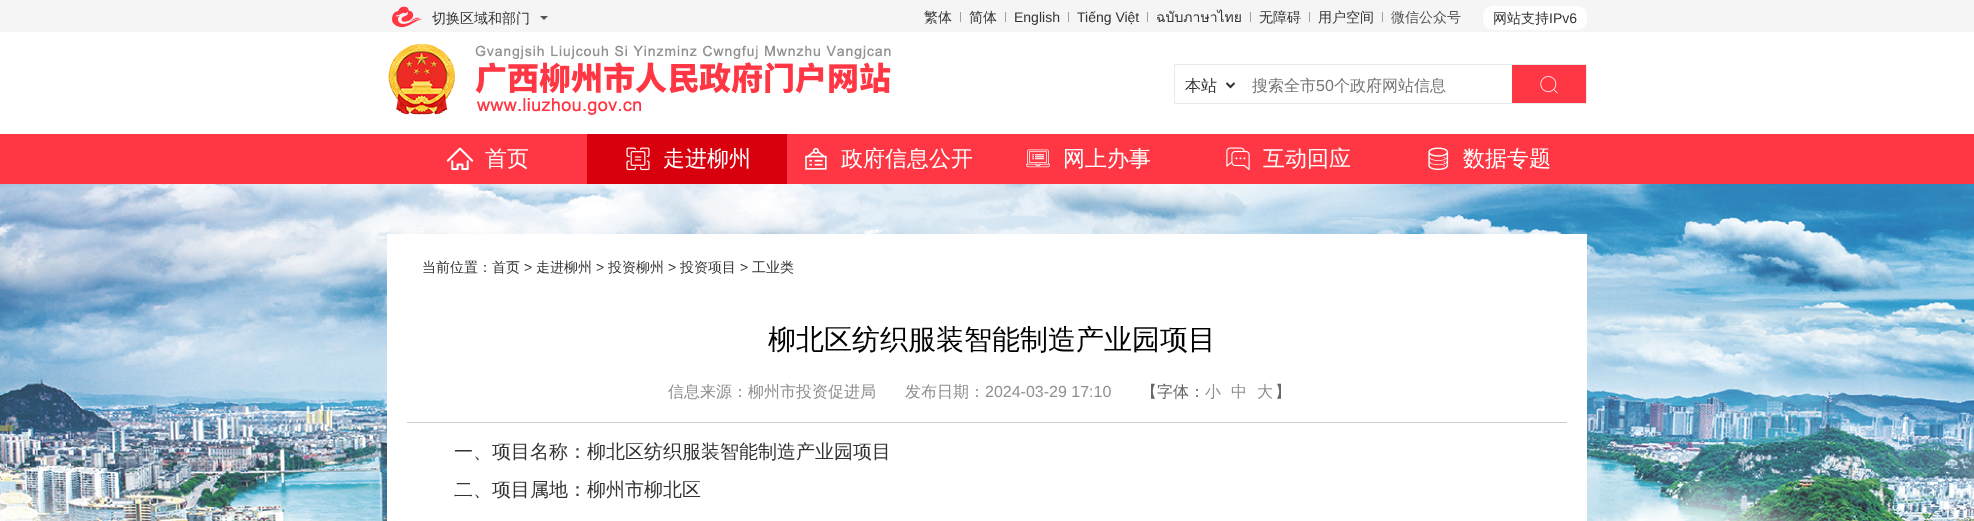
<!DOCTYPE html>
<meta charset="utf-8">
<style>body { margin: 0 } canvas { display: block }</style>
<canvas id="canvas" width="1974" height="521"></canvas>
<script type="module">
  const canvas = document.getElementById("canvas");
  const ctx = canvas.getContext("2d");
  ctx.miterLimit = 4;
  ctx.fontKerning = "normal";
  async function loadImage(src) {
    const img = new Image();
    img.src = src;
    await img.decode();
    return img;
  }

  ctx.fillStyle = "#ffffff";
  ctx.fillRect(0, 0, 1974, 521);
  ctx.fillStyle = "#f5f5f5";
  ctx.fillRect(0, 0, 1974, 32);
  ctx.drawImage(await loadImage("img1.png"), 392, 6, 30, 22);
  ctx.font = "500 14px WenQuanYi Zen Hei";
  ctx.fillStyle = "#333333";
  ctx.fillText("切换区域和部门", 432, 23);
  ctx.fillStyle = "#555555";
  ctx.beginPath();
  ctx.moveTo(540, 16);
  ctx.lineTo(548, 16);
  ctx.lineTo(544, 20);
  ctx.closePath();
  ctx.fill();
  ctx.fillStyle = "#333333";
  ctx.fillText("繁体", 924, 22);
  ctx.fillStyle = "#a0a0a0";
  ctx.fillRect(960, 12, 1, 10);
  ctx.fillStyle = "#333333";
  ctx.fillText("简体", 969, 22);
  ctx.fillStyle = "#a0a0a0";
  ctx.fillRect(1005, 12, 1, 10);
  ctx.font = "14px Liberation Sans";
  ctx.fillStyle = "#333333";
  ctx.fillText("English", 1014, 22);
  ctx.fillStyle = "#a0a0a0";
  ctx.fillRect(1068, 12, 1, 10);
  ctx.fillStyle = "#333333";
  ctx.fillText("Tiếng Việt", 1077, 22);
  ctx.fillStyle = "#a0a0a0";
  ctx.fillRect(1147, 12, 1, 10);
  ctx.font = "14px Loma";
  ctx.fillStyle = "#333333";
  ctx.fillText("ฉบับภาษาไทย", 1156, 22);
  ctx.fillStyle = "#a0a0a0";
  ctx.fillRect(1250, 12, 1, 10);
  ctx.font = "500 14px WenQuanYi Zen Hei";
  ctx.fillStyle = "#333333";
  ctx.fillText("无障碍", 1259, 22);
  ctx.fillStyle = "#a0a0a0";
  ctx.fillRect(1309, 12, 1, 10);
  ctx.fillStyle = "#333333";
  ctx.fillText("用户空间", 1318, 22);
  ctx.fillStyle = "#a0a0a0";
  ctx.fillRect(1382, 12, 1, 10);
  ctx.fillStyle = "#555555";
  ctx.fillText("微信公众号", 1391, 22);
  ctx.fillStyle = "#ffffff";
  ctx.beginPath();
  ctx.roundRect(1483, 6, 104, 24, 10);
  ctx.fill();
  ctx.fillStyle = "#333333";
  ctx.fillText("网站支持", 1493, 23);
  ctx.font = "14px Liberation Sans";
  ctx.fillText("IPv6", 1549, 23);
  ctx.drawImage(await loadImage("img2.png"), 388, 44, 503, 71);
  ctx.strokeStyle = "#eaeaea";
  ctx.strokeRect(1174.5, 64.5, 412, 39);
  ctx.beginPath();
  ctx.moveTo(1226.5, 83);
  ctx.lineTo(1230.5, 87);
  ctx.lineTo(1234.5, 83);
  ctx.strokeStyle = "#333333";
  ctx.lineWidth = 2;
  ctx.stroke();
  ctx.font = "500 16px WenQuanYi Zen Hei";
  ctx.fillText("本站", 1185, 91);
  ctx.fillStyle = "#757575";
  ctx.fillText("搜索全市", 1252, 91);
  ctx.font = "16px Liberation Sans";
  ctx.fillText("50", 1316, 91);
  ctx.font = "500 16px WenQuanYi Zen Hei";
  ctx.fillText("个政府网站信息", 1334, 91);
  ctx.fillStyle = "#ff3643";
  ctx.fillRect(1512, 65, 74, 38);
  ctx.drawImage(await loadImage("img3.png"), 1540, 76, 18, 18);
  ctx.fillRect(0, 134, 1974, 50);
  ctx.drawImage(await loadImage("img4.png"), 446, 147, 28, 24);
  ctx.font = "500 22px WenQuanYi Zen Hei";
  ctx.fillStyle = "#ffffff";
  ctx.fillText("首页", 485, 166);
  ctx.fillStyle = "#d9000e";
  ctx.fillRect(587, 134, 200, 50);
  ctx.drawImage(await loadImage("img5.png"), 626, 147, 24, 24);
  ctx.fillStyle = "#ffffff";
  ctx.fillText("走进柳州", 663, 166);
  ctx.drawImage(await loadImage("img6.png"), 805, 147, 22, 23);
  ctx.fillText("政府信息公开", 841, 166);
  ctx.drawImage(await loadImage("img7.png"), 1026, 149, 24, 19);
  ctx.fillText("网上办事", 1063, 166);
  ctx.drawImage(await loadImage("img8.png"), 1226, 147, 24, 23);
  ctx.fillText("互动回应", 1263, 166);
  ctx.drawImage(await loadImage("img9.png"), 1428, 147, 21, 24);
  ctx.fillText("数据专题", 1463, 166);
  ctx.drawImage(await loadImage("img10.png"), 0, 184, 1974, 337);
  ctx.fillRect(387, 234, 1200, 287);
  ctx.font = "500 14px WenQuanYi Zen Hei";
  ctx.fillStyle = "#333333";
  ctx.fillText("当前位置：首页", 422, 272);
  ctx.font = "14px Liberation Sans";
  ctx.fillText(">", 524, 272);
  ctx.font = "500 14px WenQuanYi Zen Hei";
  ctx.fillText("走进柳州", 536, 272);
  ctx.font = "14px Liberation Sans";
  ctx.fillText(">", 596, 272);
  ctx.font = "500 14px WenQuanYi Zen Hei";
  ctx.fillText("投资柳州", 608, 272);
  ctx.font = "14px Liberation Sans";
  ctx.fillText(">", 668, 272);
  ctx.font = "500 14px WenQuanYi Zen Hei";
  ctx.fillText("投资项目", 680, 272);
  ctx.font = "14px Liberation Sans";
  ctx.fillText(">", 740, 272);
  ctx.font = "500 14px WenQuanYi Zen Hei";
  ctx.fillText("工业类", 752, 272);
  ctx.fillStyle = "#cfcfcf";
  ctx.fillRect(407, 422, 1160, 1);
  ctx.font = "500 28px WenQuanYi Zen Hei";
  ctx.fillStyle = "#000000";
  ctx.fillText("柳北区纺织服装智能制造产业园项目", 768, 349);
  ctx.font = "500 16px WenQuanYi Zen Hei";
  ctx.fillStyle = "#8f8f8f";
  ctx.fillText("信息来源：柳州市投资促进局", 668, 397);
  ctx.fillText("发布日期：", 905, 397);
  ctx.font = "16px Liberation Sans";
  ctx.fillText("2024-03-29 17:10", 985, 397);
  ctx.font = "500 16px WenQuanYi Zen Hei";
  ctx.fillStyle = "#666666";
  ctx.fillText("【字体：", 1141, 397);
  ctx.fillStyle = "#8f8f8f";
  ctx.fillText("小", 1205, 397);
  ctx.fillText("中", 1231, 397);
  ctx.fillText("大", 1257, 397);
  ctx.fillStyle = "#666666";
  ctx.fillText("】", 1275, 397);
  ctx.font = "500 19px WenQuanYi Zen Hei";
  ctx.fillStyle = "#333333";
  ctx.fillText("一、项目名称：柳北区纺织服装智能制造产业园项目", 454, 458);
  ctx.fillText("二、项目属地：柳州市柳北区", 454, 496);
</script>
